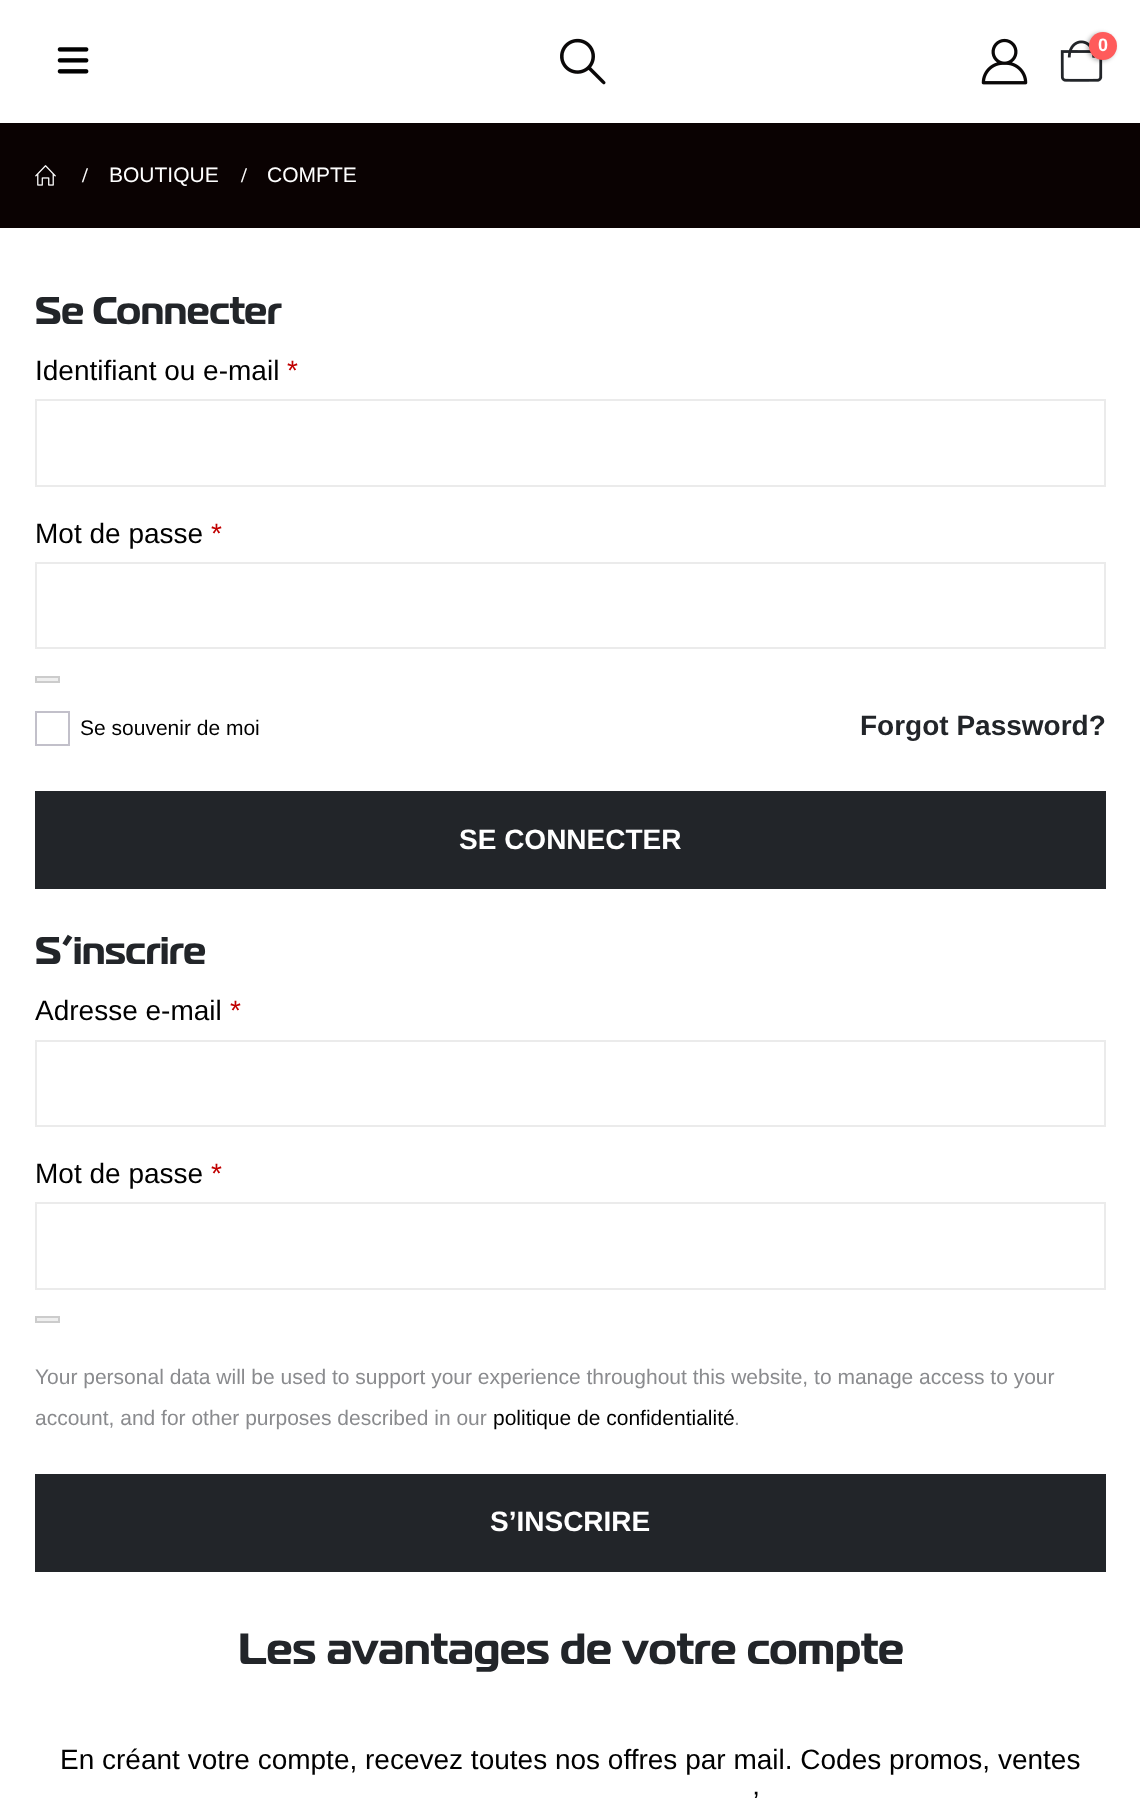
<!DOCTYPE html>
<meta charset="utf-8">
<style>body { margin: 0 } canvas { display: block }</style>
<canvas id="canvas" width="1140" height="1801"></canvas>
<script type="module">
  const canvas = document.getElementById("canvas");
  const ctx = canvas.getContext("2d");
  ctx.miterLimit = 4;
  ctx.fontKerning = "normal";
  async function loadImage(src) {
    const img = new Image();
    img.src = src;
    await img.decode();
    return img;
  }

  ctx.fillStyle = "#ffffff";
  ctx.fillRect(0, 0, 1140, 1801);
  ctx.drawImage(await loadImage("img1.png"), 560, 38, 46, 47);
  ctx.drawImage(await loadImage("img2.png"), 981, 38, 47, 47);
  ctx.drawImage(await loadImage("img3.png"), 1060, 40, 43, 42);
  ctx.fillStyle = "rgba(0, 0, 0, 0.3)";
  ctx.filter = "blur(2px)";
  ctx.beginPath();
  ctx.roundRect(1087, 33, 28, 28, 14);
  ctx.fill();
  ctx.filter = "none";
  ctx.fillStyle = "#ff5b5b";
  ctx.beginPath();
  ctx.arc(1103, 46, 14, 0, Math.PI * 2);
  ctx.fill();
  ctx.font = "bold 18px Liberation Sans";
  ctx.fillStyle = "#ffffff";
  ctx.fillText("0", 1098, 51);
  ctx.drawImage(await loadImage("img4.png"), 57, 47, 32, 27);
  ctx.fillStyle = "#0a0202";
  ctx.fillRect(0, 123, 1140, 105);
  ctx.drawImage(await loadImage("img5.png"), 35, 165, 21, 21);
  ctx.font = "bold 21px Liberation Serif";
  ctx.fillStyle = "#ffffff";
  ctx.fillText("/", 82, 182);
  ctx.font = "21px Liberation Sans";
  ctx.fillText("BOUTIQUE", 109, 182);
  ctx.font = "bold 21px Liberation Serif";
  ctx.fillText("/", 241, 182);
  ctx.font = "21px Liberation Sans";
  ctx.fillText("COMPTE", 267, 182);
  ctx.letterSpacing = "-0.4px";
  ctx.font = "bold 38.5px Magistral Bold";
  ctx.fillStyle = "#222529";
  ctx.fillText("Se Connecter", 35, 324);
  ctx.letterSpacing = "0px";
  ctx.font = "28px Liberation Sans";
  ctx.fillStyle = "#000000";
  ctx.fillText("Identifiant ou e-mail", 35, 380);
  ctx.fillStyle = "#c10000";
  ctx.fillText("*", 287, 380);
  ctx.strokeStyle = "#ebebeb";
  ctx.lineWidth = 2;
  ctx.strokeRect(36, 400, 1069, 86);
  ctx.fillStyle = "#000000";
  ctx.fillText("Mot de passe", 35, 543);
  ctx.fillStyle = "#c10000";
  ctx.fillText("*", 211, 543);
  ctx.strokeRect(36, 563, 1069, 85);
  ctx.fillStyle = "#efefef";
  ctx.beginPath();
  ctx.rect(36, 677, 23, 5);
  ctx.fill();
  ctx.strokeStyle = "#cccccc";
  ctx.stroke();
  ctx.strokeStyle = "#c2c0ca";
  ctx.strokeRect(36, 712, 33, 33);
  ctx.font = "21px Liberation Sans";
  ctx.fillStyle = "#000000";
  ctx.fillText("Se souvenir de moi", 80, 735);
  ctx.font = "bold 28px Liberation Sans";
  ctx.fillStyle = "#222529";
  ctx.fillText("Forgot Password?", 860, 735);
  ctx.fillRect(35, 791, 1071, 98);
  ctx.fillStyle = "#ffffff";
  ctx.fillText("SE CONNECTER", 459, 849);
  ctx.letterSpacing = "-0.4px";
  ctx.font = "bold 38.5px Magistral Bold";
  ctx.fillStyle = "#222529";
  ctx.fillText("S’inscrire", 35, 964);
  ctx.letterSpacing = "0px";
  ctx.font = "28px Liberation Sans";
  ctx.fillStyle = "#000000";
  ctx.fillText("Adresse e-mail", 35, 1020);
  ctx.fillStyle = "#c10000";
  ctx.fillText("*", 230, 1020);
  ctx.strokeStyle = "#ebebeb";
  ctx.strokeRect(36, 1041, 1069, 85);
  ctx.fillStyle = "#000000";
  ctx.fillText("Mot de passe", 35, 1183);
  ctx.fillStyle = "#c10000";
  ctx.fillText("*", 211, 1183);
  ctx.strokeRect(36, 1203, 1069, 86);
  ctx.fillStyle = "#efefef";
  ctx.beginPath();
  ctx.rect(36, 1317, 23, 5);
  ctx.fill();
  ctx.strokeStyle = "#cccccc";
  ctx.stroke();
  ctx.font = "21px Liberation Sans";
  ctx.fillStyle = "#8a8b8e";
  ctx.fillText("Your personal data will be used to support your experience throughout this website, to manage access to your", 35, 1384);
  ctx.fillText("account, and for other purposes described in our", 35, 1425);
  ctx.fillStyle = "#000000";
  ctx.fillText("politique de confidentialité", 493, 1425);
  ctx.fillStyle = "#8a8b8e";
  ctx.fillText(".", 734, 1425);
  ctx.fillStyle = "#222529";
  ctx.fillRect(35, 1474, 1071, 98);
  ctx.font = "bold 28px Liberation Sans";
  ctx.fillStyle = "#ffffff";
  ctx.fillText("S’INSCRIRE", 490, 1531);
  ctx.font = "bold 43.75px Magistral Bold";
  ctx.fillStyle = "#222529";
  ctx.fillText("Les avantages de votre compte", 238, 1664);
  ctx.font = "28px Liberation Sans";
  ctx.fillStyle = "#000000";
  ctx.fillText("En créant votre compte, recevez toutes nos offres par mail. Codes promos, ventes", 60, 1769);
  ctx.fillText("’", 753, 1811);
</script>
